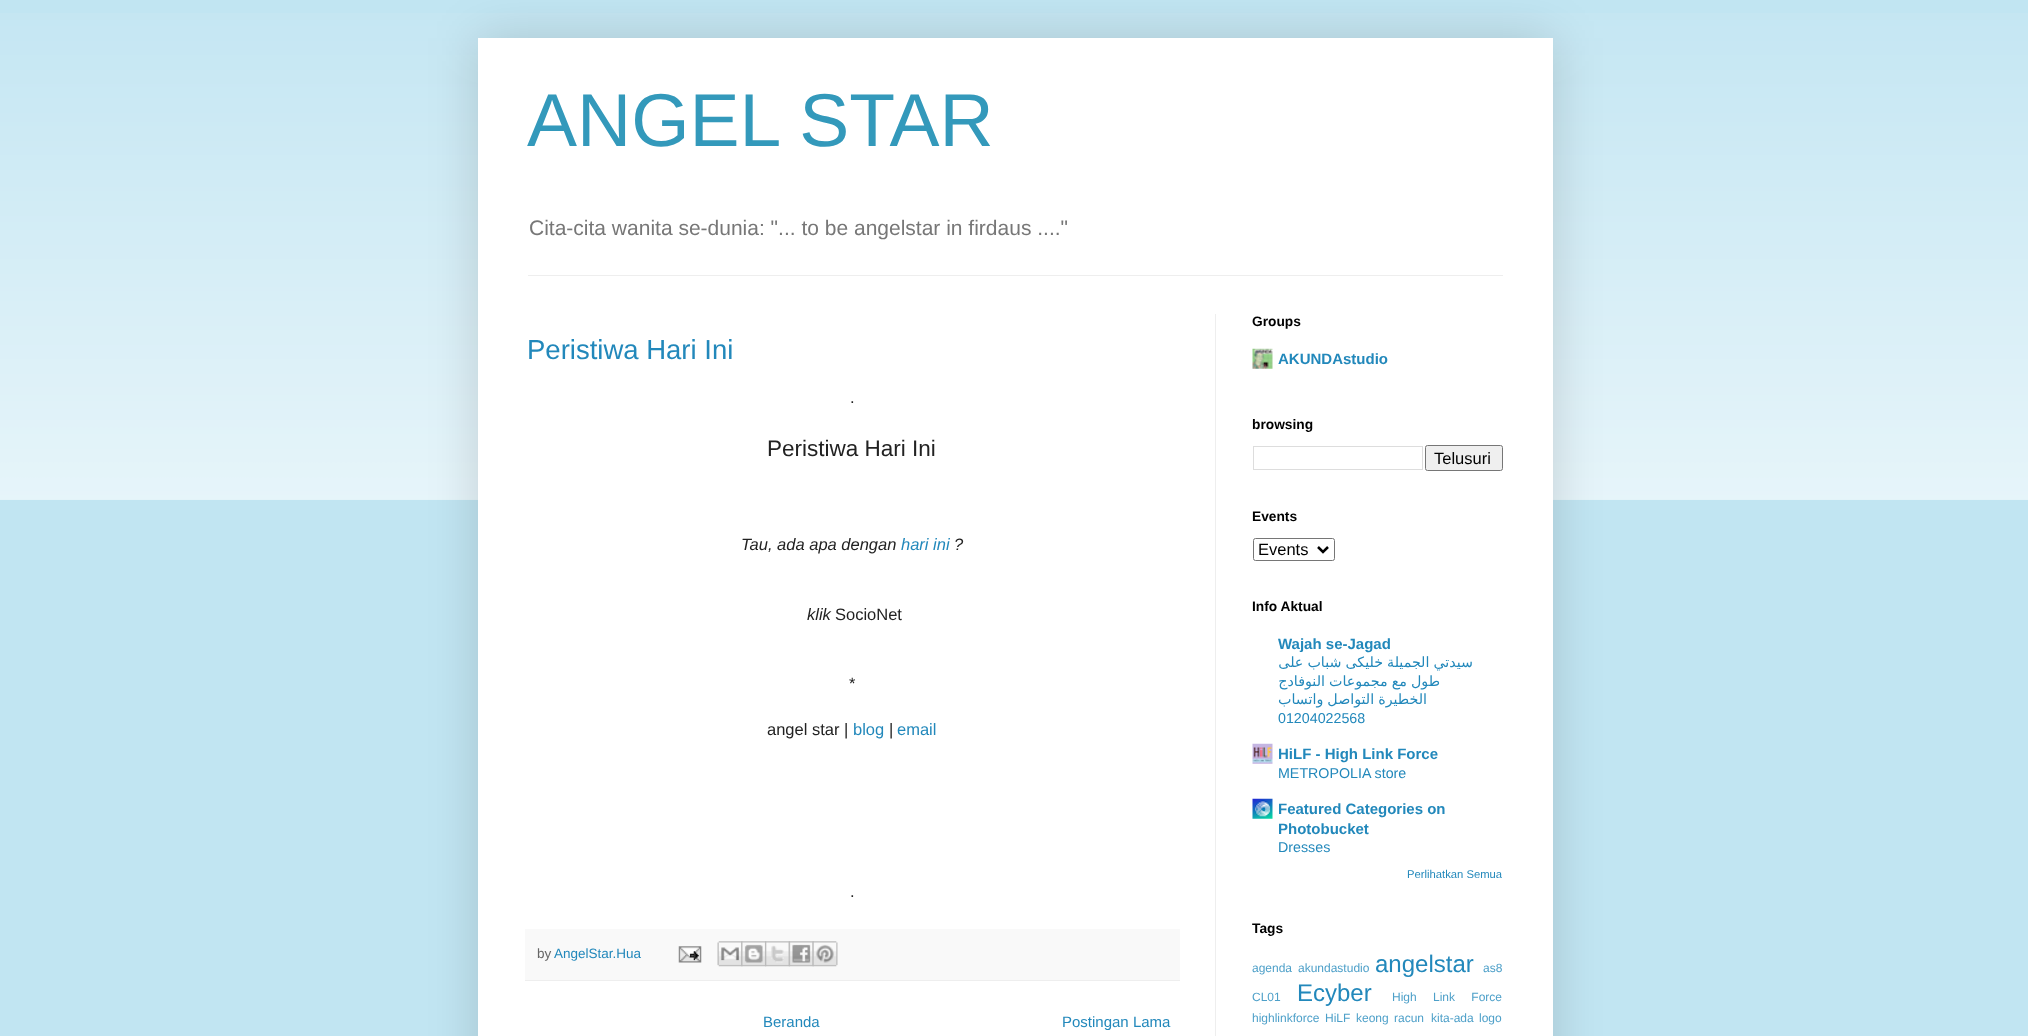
<!DOCTYPE html>
<meta charset="utf-8">
<style>body { margin: 0 } canvas { display: block }</style>
<canvas id="canvas" width="2028" height="1036"></canvas>
<script type="module">
  const canvas = document.getElementById("canvas");
  const ctx = canvas.getContext("2d");
  ctx.miterLimit = 4;
  ctx.fontKerning = "normal";
  async function loadImage(src) {
    const img = new Image();
    img.src = src;
    await img.decode();
    return img;
  }

  ctx.fillStyle = "#c1e5f2";
  ctx.fillRect(0, 0, 2028, 1036);
  ctx.drawImage(await loadImage("img1.png"), 0, 13, 2028, 487);
  ctx.fillStyle = "rgba(0, 0, 0, 0.15)";
  ctx.filter = "blur(25px)";
  ctx.beginPath();
  ctx.rect(478, 38, 1075, 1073);
  ctx.fill();
  ctx.filter = "none";
  ctx.fillStyle = "#ffffff";
  ctx.fillRect(478, 38, 1075, 998);
  ctx.font = "75px Liberation Sans";
  ctx.fillStyle = "#3399bb";
  ctx.fillText("ANGEL STAR", 527, 146);
  ctx.font = "21px Liberation Sans";
  ctx.fillStyle = "#777777";
  ctx.fillText("Cita-cita wanita se-dunia: \"... to be angelstar in firdaus ....\"", 529, 235);
  ctx.fillStyle = "#eeeeee";
  ctx.fillRect(528, 275, 975, 1);
  ctx.fillRect(1215, 314, 1, 722);
  ctx.font = "27.5px Liberation Sans";
  ctx.fillStyle = "#2288bb";
  ctx.fillText("Peristiwa Hari Ini", 527, 359);
  ctx.font = "16.5px Liberation Sans";
  ctx.fillStyle = "#222222";
  ctx.fillText(".", 850, 403);
  ctx.font = "22.5px Liberation Sans";
  ctx.fillText("Peristiwa Hari Ini", 767, 456);
  ctx.font = "italic 16.5px Liberation Sans";
  ctx.fillText("Tau, ada apa dengan", 741, 550);
  ctx.fillStyle = "#2288bb";
  ctx.fillText("hari ini", 901, 550);
  ctx.fillStyle = "#222222";
  ctx.fillText("?", 954, 550);
  ctx.fillText("klik", 807, 620);
  ctx.font = "16.5px Liberation Sans";
  ctx.fillText("SocioNet", 835, 620);
  ctx.fillText("*", 849, 689);
  ctx.fillText("angel star |", 767, 735);
  ctx.fillStyle = "#2288bb";
  ctx.fillText("blog", 853, 735);
  ctx.fillStyle = "#222222";
  ctx.fillText("|", 889, 735);
  ctx.fillStyle = "#2288bb";
  ctx.fillText("email", 897, 735);
  ctx.fillStyle = "#222222";
  ctx.fillText(".", 850, 897);
  ctx.fillStyle = "#f9f9f9";
  ctx.fillRect(525, 929, 655, 51);
  ctx.fillStyle = "#eeeeee";
  ctx.fillRect(525, 980, 655, 1);
  ctx.font = "13.5px Liberation Sans";
  ctx.fillStyle = "#666666";
  ctx.fillText("by", 537, 958);
  ctx.fillStyle = "#2288bb";
  ctx.fillText("AngelStar.Hua", 554, 958);
  ctx.drawImage(await loadImage("img2.png"), 678, 946, 24, 17);
  ctx.drawImage(await loadImage("img3.png"), 717, 941, 26, 26);
  ctx.drawImage(await loadImage("img4.png"), 741, 941, 26, 26);
  ctx.drawImage(await loadImage("img5.png"), 765, 941, 25, 26);
  ctx.drawImage(await loadImage("img6.png"), 788, 941, 26, 26);
  ctx.drawImage(await loadImage("img7.png"), 812, 941, 26, 26);
  ctx.font = "15px Liberation Sans";
  ctx.fillText("Beranda", 763, 1027);
  ctx.fillText("Postingan Lama", 1062, 1027);
  ctx.font = "bold 13.75px Liberation Sans";
  ctx.fillStyle = "#000000";
  ctx.fillText("Groups", 1252, 326);
  ctx.drawImage(await loadImage("img8.png"), 1252, 348, 21, 21);
  ctx.font = "bold 15px Liberation Sans";
  ctx.fillStyle = "#2288bb";
  ctx.fillText("AKUNDAstudio", 1278, 364);
  ctx.font = "bold 13.75px Liberation Sans";
  ctx.fillStyle = "#000000";
  ctx.fillText("browsing", 1252, 429);
  ctx.strokeStyle = "#dddddd";
  ctx.strokeRect(1253.5, 446.5, 169, 23);
  ctx.fillStyle = "#efefef";
  ctx.beginPath();
  ctx.roundRect(1425.5, 445.5, 77, 25, 2);
  ctx.fill();
  ctx.strokeStyle = "#767676";
  ctx.stroke();
  ctx.font = "16.5px Liberation Sans";
  ctx.fillStyle = "#000000";
  ctx.fillText("Telusuri", 1434, 464);
  ctx.font = "bold 13.75px Liberation Sans";
  ctx.fillText("Events", 1252, 521);
  ctx.beginPath();
  ctx.roundRect(1253.5, 538.5, 81, 22, 2);
  ctx.stroke();
  ctx.beginPath();
  ctx.moveTo(1318, 547);
  ctx.lineTo(1323, 552);
  ctx.lineTo(1328, 547);
  ctx.strokeStyle = "#000000";
  ctx.lineWidth = 2.5;
  ctx.stroke();
  ctx.font = "16.5px Liberation Sans";
  ctx.fillText("Events", 1258, 555);
  ctx.font = "bold 13.75px Liberation Sans";
  ctx.fillText("Info Aktual", 1252, 611);
  ctx.font = "bold 15px Liberation Sans";
  ctx.fillStyle = "#2288bb";
  ctx.fillText("Wajah se-Jagad", 1278, 649);
  ctx.wordSpacing = "-0.5px";
  ctx.direction = "rtl";
  ctx.font = "14.25px DejaVu Sans";
  ctx.fillText("سيدتي الجميلة خليكى شباب على", 1473, 667);
  ctx.fillText("طول مع مجموعات النوفادج", 1440, 686);
  ctx.fillText("الخطيرة التواصل واتساب", 1427, 704);
  ctx.wordSpacing = "0px";
  ctx.direction = "ltr";
  ctx.font = "14.25px Liberation Sans";
  ctx.fillText("01204022568", 1278, 723);
  ctx.drawImage(await loadImage("img9.png"), 1252, 743, 21, 21);
  ctx.font = "bold 15px Liberation Sans";
  ctx.fillText("HiLF - High Link Force", 1278, 759);
  ctx.font = "14.25px Liberation Sans";
  ctx.fillText("METROPOLIA store", 1278, 778);
  ctx.drawImage(await loadImage("img10.png"), 1252, 798, 21, 21);
  ctx.font = "bold 15px Liberation Sans";
  ctx.fillText("Featured Categories on", 1278, 814);
  ctx.fillText("Photobucket", 1278, 834);
  ctx.font = "14.25px Liberation Sans";
  ctx.fillText("Dresses", 1278, 852);
  ctx.font = "11.25px Liberation Sans";
  ctx.fillText("Perlihatkan Semua", 1407, 878);
  ctx.font = "bold 13.75px Liberation Sans";
  ctx.fillStyle = "#000000";
  ctx.fillText("Tags", 1252, 933);
  ctx.font = "12px Liberation Sans";
  ctx.fillStyle = "#4ea0c9";
  ctx.fillText("agenda", 1252, 972);
  ctx.fillText("akundastudio", 1298, 972);
  ctx.font = "24px Liberation Sans";
  ctx.fillStyle = "#2288bb";
  ctx.fillText("angelstar", 1375, 972);
  ctx.font = "12px Liberation Sans";
  ctx.fillStyle = "#4ea0c9";
  ctx.fillText("as8", 1483, 972);
  ctx.fillText("CL01", 1252, 1001);
  ctx.font = "24px Liberation Sans";
  ctx.fillStyle = "#2288bb";
  ctx.fillText("Ecyber", 1297, 1001);
  ctx.wordSpacing = "13px";
  ctx.font = "12px Liberation Sans";
  ctx.fillStyle = "#4ea0c9";
  ctx.fillText("High Link Force", 1392, 1001);
  ctx.wordSpacing = "0px";
  ctx.fillText("highlinkforce", 1252, 1022);
  ctx.fillText("HiLF", 1325, 1022);
  ctx.wordSpacing = "2px";
  ctx.fillText("keong racun", 1356, 1022);
  ctx.wordSpacing = "0px";
  ctx.fillText("kita-ada", 1431, 1022);
  ctx.fillText("logo", 1479, 1022);
</script>
